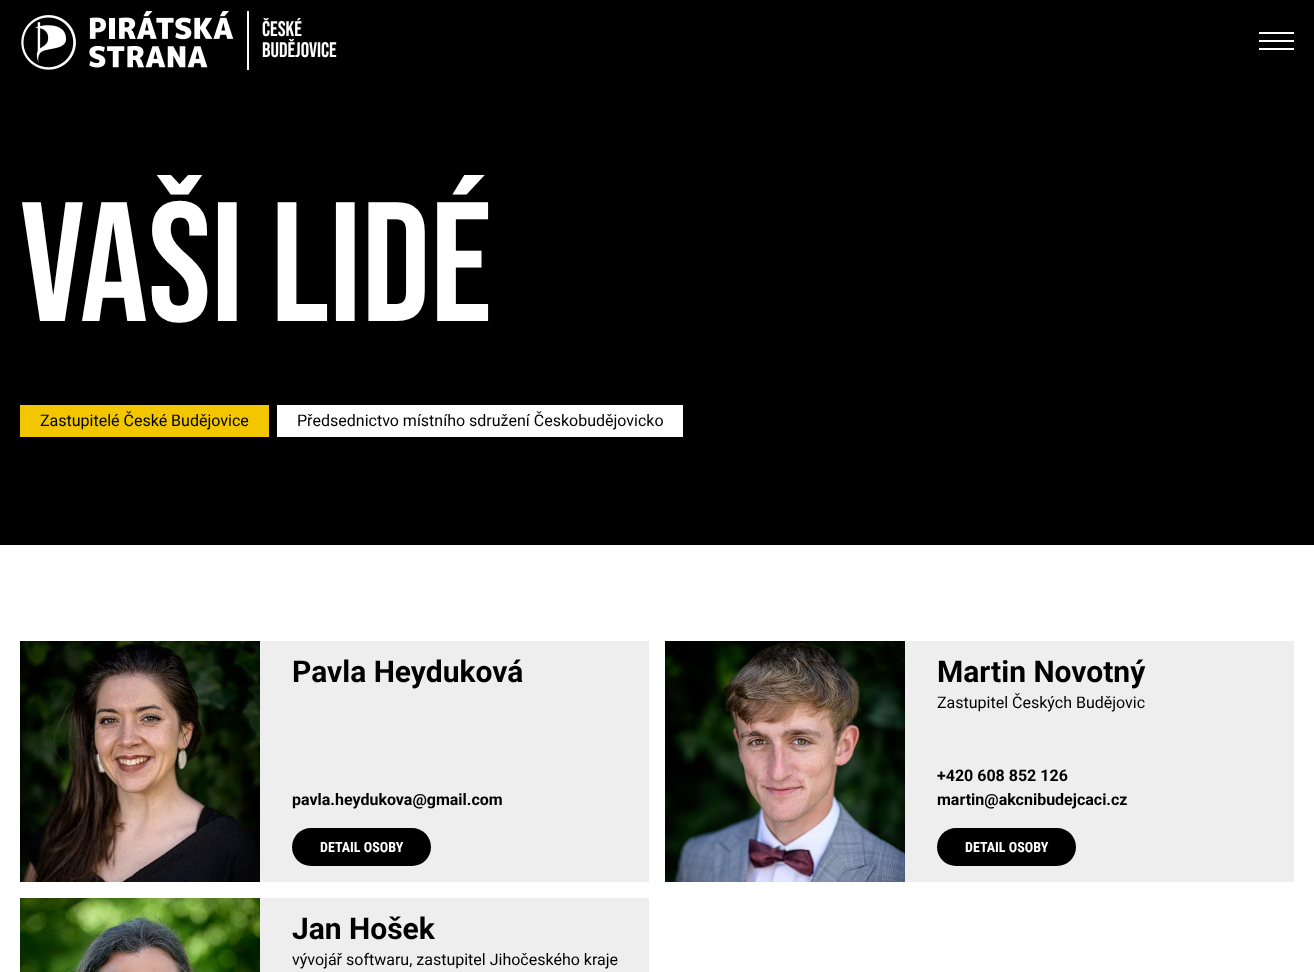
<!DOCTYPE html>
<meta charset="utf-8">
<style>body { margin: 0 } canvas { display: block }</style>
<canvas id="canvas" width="1314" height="972"></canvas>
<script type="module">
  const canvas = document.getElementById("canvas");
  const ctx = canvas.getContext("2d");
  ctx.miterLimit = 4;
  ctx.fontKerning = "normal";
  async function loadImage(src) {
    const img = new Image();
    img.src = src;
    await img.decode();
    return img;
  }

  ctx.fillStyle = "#ffffff";
  ctx.fillRect(0, 0, 1314, 972);
  ctx.fillStyle = "#000000";
  ctx.fillRect(0, 0, 1314, 545);
  ctx.drawImage(await loadImage("img1.png"), 21, 11, 228, 59);
  ctx.font = "21px Bebas Neue";
  ctx.fillStyle = "#ffffff";
  ctx.fillText("České", 262, 36);
  ctx.fillText("Budějovice", 262, 57);
  ctx.fillRect(1259, 32, 35, 2);
  ctx.fillRect(1259, 40, 35, 2);
  ctx.fillRect(1259, 48, 35, 2);
  ctx.font = "169.5px Bebas Neue";
  ctx.fillText("VAŠI LIDÉ", 20, 321);
  ctx.fillStyle = "#f2c700";
  ctx.fillRect(20, 405, 249, 32);
  ctx.font = "16px Roboto";
  ctx.fillStyle = "#000000";
  ctx.fillText("Zastupitelé České Budějovice", 40, 426);
  ctx.fillStyle = "#ffffff";
  ctx.fillRect(277, 405, 406, 32);
  ctx.fillStyle = "#000000";
  ctx.fillText("Předsednictvo místního sdružení Českobudějovicko", 297, 426);
  ctx.fillStyle = "#eeeeee";
  ctx.fillRect(260, 641, 389, 241);
  ctx.drawImage(await loadImage("img2.png"), 20, 641, 240, 241);
  ctx.font = "bold 30px Roboto";
  ctx.fillStyle = "#000000";
  ctx.fillText("Pavla Heyduková", 292, 682);
  ctx.font = "bold 16px Roboto";
  ctx.fillText("pavla.heydukova@gmail.com", 292, 805);
  ctx.beginPath();
  ctx.roundRect(292, 828, 139, 38, 19);
  ctx.fill();
  ctx.font = "bold 14px Roboto Condensed";
  ctx.fillStyle = "#ffffff";
  ctx.fillText("DETAIL OSOBY", 320, 852);
  ctx.fillStyle = "#eeeeee";
  ctx.fillRect(905, 641, 389, 241);
  ctx.drawImage(await loadImage("img3.png"), 665, 641, 240, 241);
  ctx.font = "bold 30px Roboto";
  ctx.fillStyle = "#000000";
  ctx.fillText("Martin Novotný", 937, 682);
  ctx.font = "16px Roboto";
  ctx.fillText("Zastupitel Českých Budějovic", 937, 708);
  ctx.font = "bold 16px Roboto";
  ctx.fillText("+420 608 852 126", 937, 781);
  ctx.fillText("martin@akcnibudejcaci.cz", 937, 805);
  ctx.beginPath();
  ctx.roundRect(937, 828, 139, 38, 19);
  ctx.fill();
  ctx.font = "bold 14px Roboto Condensed";
  ctx.fillStyle = "#ffffff";
  ctx.fillText("DETAIL OSOBY", 965, 852);
  ctx.fillStyle = "#eeeeee";
  ctx.fillRect(260, 898, 389, 74);
  ctx.drawImage(await loadImage("img4.png"), 20, 898, 240, 74);
  ctx.font = "bold 30px Roboto";
  ctx.fillStyle = "#000000";
  ctx.fillText("Jan Hošek", 292, 939);
  ctx.font = "16px Roboto";
  ctx.fillText("vývojář softwaru, zastupitel Jihočeského kraje", 292, 965);
</script>
